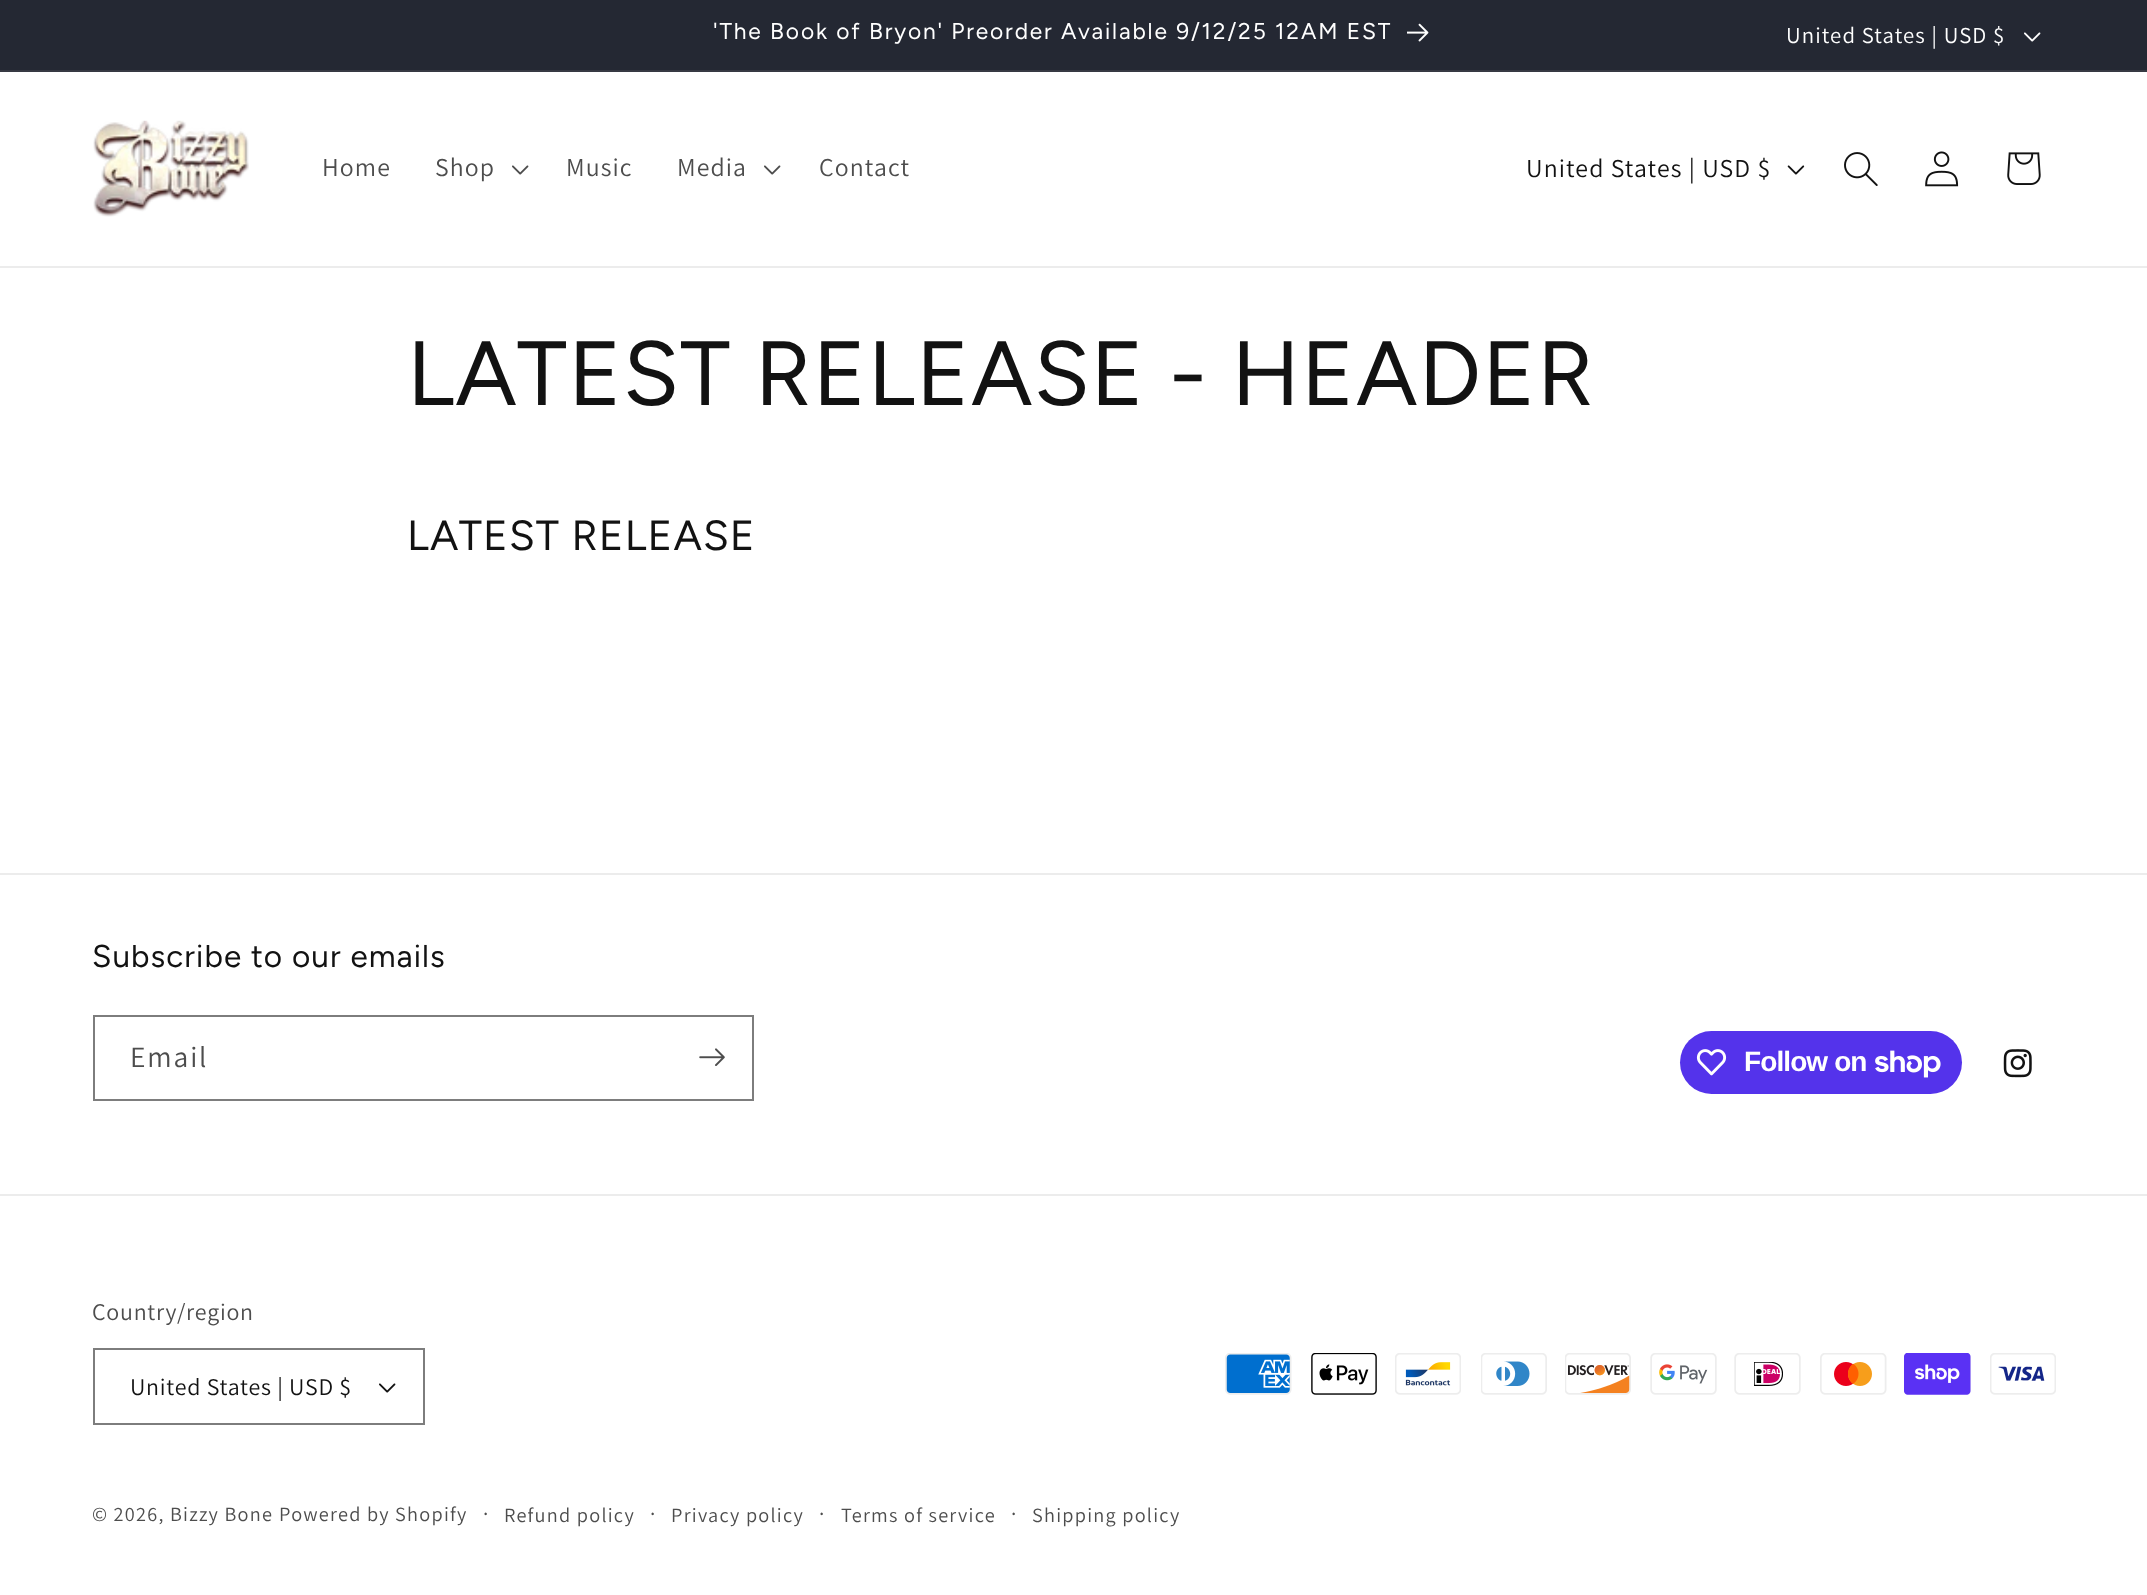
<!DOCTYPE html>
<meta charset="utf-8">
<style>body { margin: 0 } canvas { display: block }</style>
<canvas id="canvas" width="2147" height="1595"></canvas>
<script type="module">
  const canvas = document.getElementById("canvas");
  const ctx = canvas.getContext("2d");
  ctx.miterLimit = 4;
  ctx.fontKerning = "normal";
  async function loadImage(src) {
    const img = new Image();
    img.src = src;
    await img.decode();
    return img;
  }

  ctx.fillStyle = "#ffffff";
  ctx.fillRect(0, 0, 2147, 1595);
  ctx.fillStyle = "#242833";
  ctx.fillRect(0, 0, 2147, 70);
  ctx.fillStyle = "#363943";
  ctx.fillRect(0, 70, 2147, 2);
  ctx.letterSpacing = "1.85px";
  ctx.font = "22.75px Figtree";
  ctx.fillStyle = "#ffffff";
  ctx.fillText("'The Book of Bryon' Preorder Available 9/12/25 12AM EST", 713, 39);
  ctx.drawImage(await loadImage("img1.png"), 1407, 23, 22, 19);
  ctx.letterSpacing = "1.1px";
  ctx.font = "22.75px Assistant";
  ctx.fillText("United States | USD $", 1786, 43);
  ctx.drawImage(await loadImage("img2.png"), 2024, 32, 17, 10);
  ctx.fillStyle = "#ececec";
  ctx.fillRect(0, 266, 2147, 2);
  ctx.drawImage(await loadImage("img3.png"), 93, 120, 156, 97);
  ctx.font = "25.75px Assistant";
  ctx.fillStyle = "#4d4d4d";
  ctx.fillText("Home", 322, 176);
  ctx.fillText("Shop", 435, 176);
  ctx.drawImage(await loadImage("img4.png"), 512, 165, 17, 10);
  ctx.fillText("Music", 566, 176);
  ctx.fillText("Media", 677, 176);
  ctx.drawImage(await loadImage("img4.png"), 764, 165, 17, 10);
  ctx.fillText("Contact", 819, 176);
  ctx.fillStyle = "#121212";
  ctx.fillText("United States | USD $", 1526, 177);
  ctx.drawImage(await loadImage("img5.png"), 1787, 165, 18, 10);
  ctx.drawImage(await loadImage("img6.png"), 1844, 152, 34, 34);
  ctx.drawImage(await loadImage("img7.png"), 1925, 151, 34, 36);
  ctx.drawImage(await loadImage("img8.png"), 2007, 152, 34, 33);
  ctx.letterSpacing = "1.05px";
  ctx.font = "91px Figtree";
  ctx.fillText("LATEST RELEASE - HEADER", 407, 405);
  ctx.font = "42px Figtree";
  ctx.fillText("LATEST RELEASE", 407, 550);
  ctx.fillStyle = "#ececec";
  ctx.fillRect(0, 873, 2147, 2);
  ctx.font = "31.5px Figtree";
  ctx.fillStyle = "#121212";
  ctx.fillText("Subscribe to our emails", 92, 967);
  ctx.strokeStyle = "#7d7d7d";
  ctx.lineWidth = 2;
  ctx.strokeRect(94, 1016, 659, 84);
  ctx.letterSpacing = "1.85px";
  ctx.font = "29.5px Assistant";
  ctx.fillStyle = "#4d4d4d";
  ctx.fillText("Email", 130, 1067);
  ctx.drawImage(await loadImage("img9.png"), 699, 1048, 26, 18);
  ctx.fillStyle = "#5433eb";
  ctx.beginPath();
  ctx.roundRect(1680, 1031, 282, 63, 31.5);
  ctx.fill();
  ctx.drawImage(await loadImage("img10.png"), 1696, 1049, 31, 27);
  ctx.letterSpacing = "-0.9px";
  ctx.font = "bold 28px Liberation Sans";
  ctx.fillStyle = "#ffffff";
  ctx.fillText("Follow on", 1744, 1071);
  ctx.drawImage(await loadImage("img11.png"), 1875, 1050, 66, 28);
  ctx.drawImage(await loadImage("img12.png"), 2003, 1049, 29, 29);
  ctx.fillStyle = "#ececec";
  ctx.fillRect(0, 1194, 2147, 2);
  ctx.letterSpacing = "0.75px";
  ctx.font = "23.9px Assistant";
  ctx.fillStyle = "#4d4d4d";
  ctx.fillText("Country/region", 92, 1320);
  ctx.drawImage(await loadImage("img13.png"), 379, 1383, 17, 10);
  ctx.strokeRect(94, 1349, 330, 75);
  ctx.fillStyle = "#121212";
  ctx.fillText("United States | USD $", 130, 1395);
  ctx.drawImage(await loadImage("img14.png"), 1225, 1353, 67, 42);
  ctx.drawImage(await loadImage("img15.png"), 1311, 1353, 66, 42);
  ctx.drawImage(await loadImage("img16.png"), 1395, 1353, 66, 42);
  ctx.drawImage(await loadImage("img17.png"), 1481, 1353, 66, 42);
  ctx.drawImage(await loadImage("img18.png"), 1565, 1353, 66, 42);
  ctx.drawImage(await loadImage("img19.png"), 1650, 1353, 67, 42);
  ctx.drawImage(await loadImage("img20.png"), 1734, 1353, 67, 42);
  ctx.drawImage(await loadImage("img21.png"), 1820, 1353, 67, 42);
  ctx.drawImage(await loadImage("img22.png"), 1904, 1353, 67, 42);
  ctx.drawImage(await loadImage("img23.png"), 1990, 1353, 66, 42);
  ctx.letterSpacing = "1.25px";
  ctx.font = "20.25px Assistant";
  ctx.fillStyle = "#4d4d4d";
  ctx.fillText("© 2026, Bizzy Bone", 92, 1521);
  ctx.fillText("Powered by Shopify", 279, 1521);
  ctx.font = "22px Assistant";
  ctx.fillText("·", 483, 1521);
  ctx.font = "20.25px Assistant";
  ctx.fillText("Refund policy", 504, 1522);
  ctx.font = "22px Assistant";
  ctx.fillText("·", 650, 1521);
  ctx.font = "20.25px Assistant";
  ctx.fillText("Privacy policy", 671, 1522);
  ctx.font = "22px Assistant";
  ctx.fillText("·", 819, 1521);
  ctx.font = "20.25px Assistant";
  ctx.fillText("Terms of service", 841, 1522);
  ctx.font = "22px Assistant";
  ctx.fillText("·", 1011, 1521);
  ctx.font = "20.25px Assistant";
  ctx.fillText("Shipping policy", 1032, 1522);
</script>
